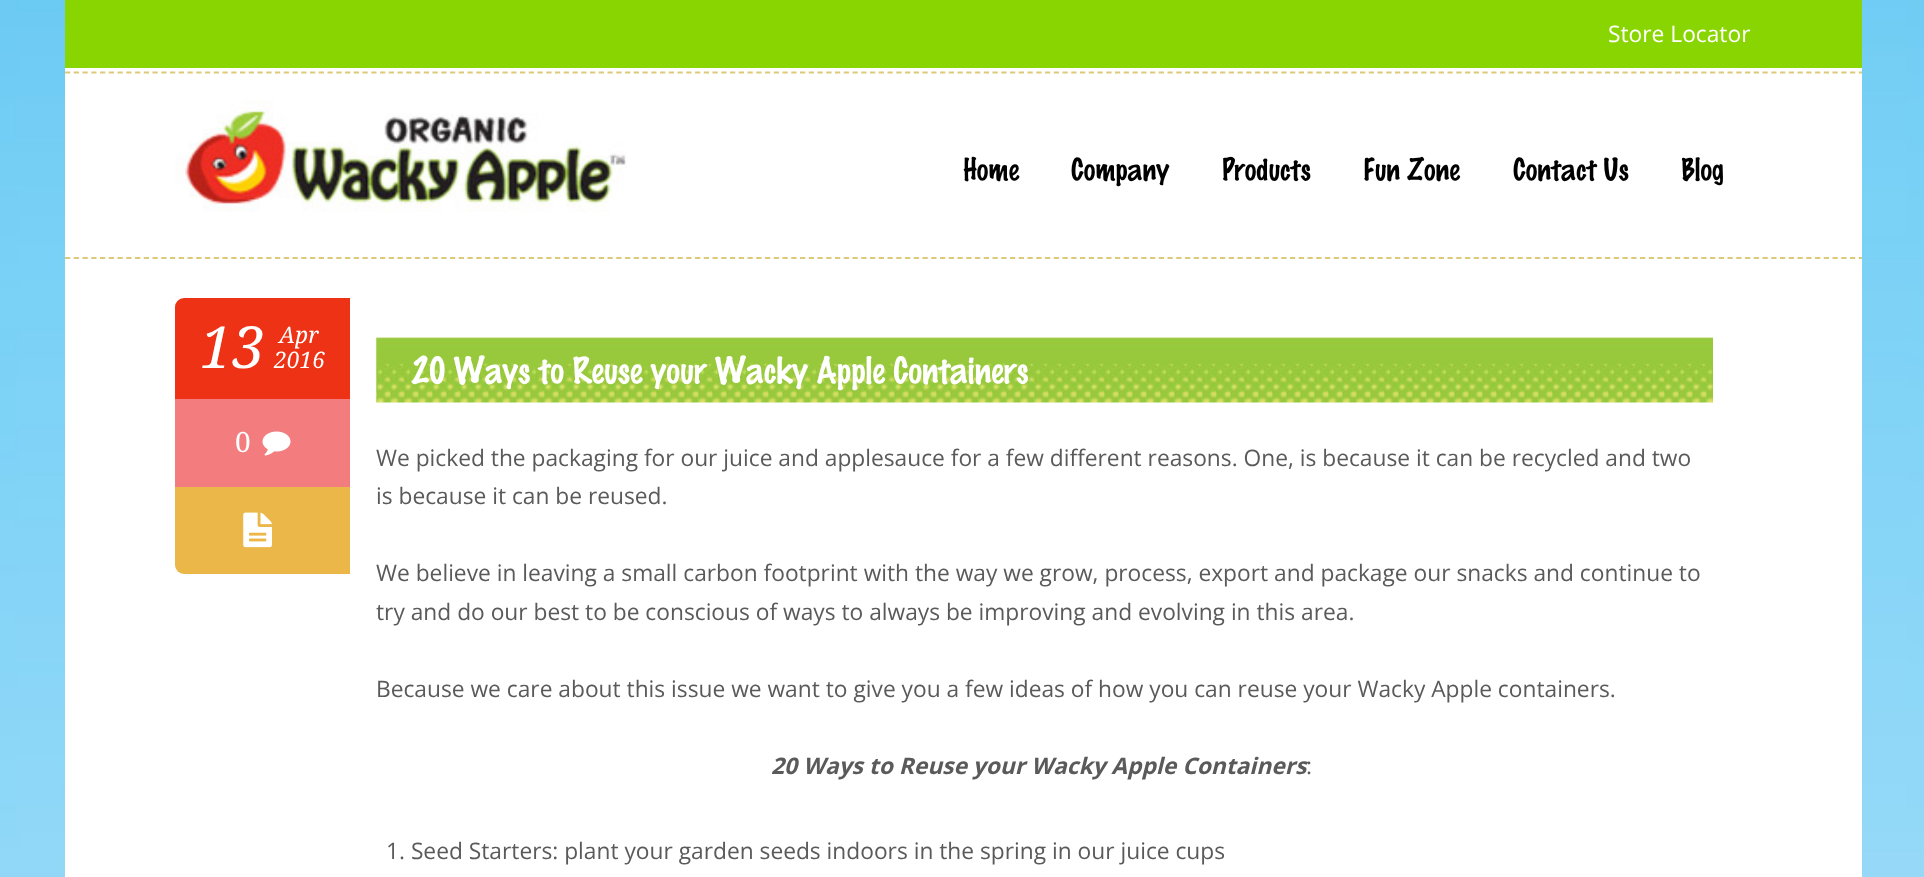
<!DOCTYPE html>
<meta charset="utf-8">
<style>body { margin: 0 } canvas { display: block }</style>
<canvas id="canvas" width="1924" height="877"></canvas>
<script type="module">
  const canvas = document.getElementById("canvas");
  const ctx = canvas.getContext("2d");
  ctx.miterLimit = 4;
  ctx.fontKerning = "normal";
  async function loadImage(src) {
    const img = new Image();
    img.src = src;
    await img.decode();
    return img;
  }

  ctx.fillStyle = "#ffffff";
  ctx.fillRect(0, 0, 1924, 877);
  ctx.drawImage(await loadImage("img1.png"), 0, 0, 1924, 877);
  ctx.fillStyle = "#89d501";
  ctx.fillRect(65, 0, 1797, 68);
  ctx.font = "22.75px Open Sans";
  ctx.fillStyle = "#ffffff";
  ctx.fillText("Store Locator", 1608, 42);
  ctx.fillRect(65, 68, 1797, 809);
  ctx.beginPath();
  ctx.moveTo(65, 72.5);
  ctx.lineTo(1862, 72.5);
  ctx.strokeStyle = "#dec978";
  ctx.lineWidth = 1.8;
  ctx.setLineDash([5.25, 3.5]);
  ctx.stroke();
  ctx.drawImage(await loadImage("img2.png"), 175, 100, 452, 112);
  ctx.font = "500 28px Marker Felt";
  ctx.fillStyle = "#000000";
  ctx.fillText("Home", 963, 180);
  ctx.fillText("Company", 1071, 180);
  ctx.fillText("Products", 1222, 180);
  ctx.fillText("Fun Zone", 1363, 180);
  ctx.fillText("Contact Us", 1513, 180);
  ctx.fillText("Blog", 1681, 180);
  ctx.beginPath();
  ctx.moveTo(65, 258);
  ctx.lineTo(1862, 258);
  ctx.stroke();
  ctx.fillStyle = "#ed3215";
  ctx.beginPath();
  ctx.roundRect(175, 298, 175, 101, [9, 0, 0, 0]);
  ctx.fill();
  ctx.font = "italic 58px Droid Serif";
  ctx.fillStyle = "#ffffff";
  ctx.fillText("13", 200, 368);
  ctx.font = "italic 22.75px Droid Serif";
  ctx.fillText("Apr", 279, 343);
  ctx.fillText("2016", 274, 368);
  ctx.fillStyle = "#f27c7e";
  ctx.fillRect(175, 399, 175, 88);
  ctx.font = "28px Droid Serif";
  ctx.fillStyle = "#ffffff";
  ctx.fillText("0", 235, 452);
  ctx.drawImage(await loadImage("img3.png"), 262, 431, 29, 25);
  ctx.fillStyle = "#ebb749";
  ctx.beginPath();
  ctx.roundRect(175, 487, 175, 87, [0, 0, 0, 9]);
  ctx.fill();
  ctx.drawImage(await loadImage("img4.png"), 243, 512, 29, 36);
  ctx.drawImage(await loadImage("img5.png"), 376, 337, 1337, 66);
  ctx.font = "500 33.25px Marker Felt";
  ctx.fillStyle = "#ffffff";
  ctx.fillText("20 Ways to Reuse your Wacky Apple Containers", 411, 383);
  ctx.font = "22.75px Open Sans";
  ctx.fillStyle = "#5a5a5a";
  ctx.fillText("We picked the packaging for our juice and applesauce for a few different reasons. One, is because it can be recycled and two", 376, 466);
  ctx.fillText("is because it can be reused.", 376, 504);
  ctx.fillText("We believe in leaving a small carbon footprint with the way we grow, process, export and package our snacks and continue to", 376, 581);
  ctx.fillText("try and do our best to be conscious of ways to always be improving and evolving in this area.", 376, 620);
  ctx.fillText("Because we care about this issue we want to give you a few ideas of how you can reuse your Wacky Apple containers.", 376, 697);
  ctx.font = "italic bold 22.75px Open Sans";
  ctx.fillText("20 Ways to Reuse your Wacky Apple Containers", 771, 774);
  ctx.font = "22.75px Open Sans";
  ctx.fillText(":", 1306, 774);
  ctx.fillText("1. Seed Starters: plant your garden seeds indoors in the spring in our juice cups", 386, 859);
</script>
